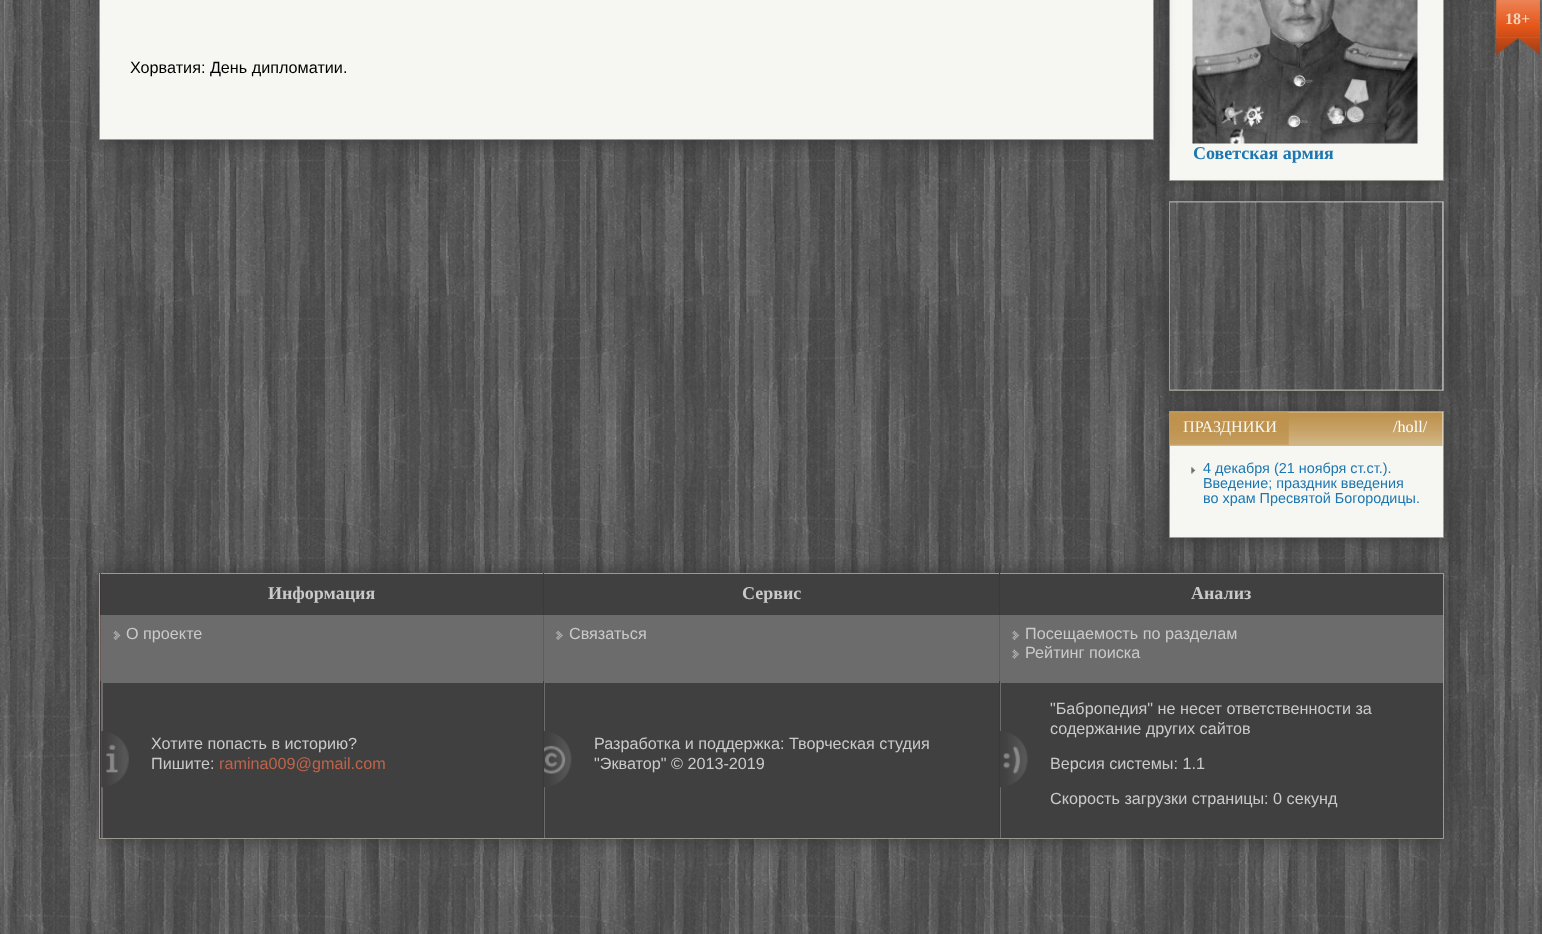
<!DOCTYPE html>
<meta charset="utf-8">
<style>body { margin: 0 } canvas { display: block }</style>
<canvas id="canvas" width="1542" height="934"></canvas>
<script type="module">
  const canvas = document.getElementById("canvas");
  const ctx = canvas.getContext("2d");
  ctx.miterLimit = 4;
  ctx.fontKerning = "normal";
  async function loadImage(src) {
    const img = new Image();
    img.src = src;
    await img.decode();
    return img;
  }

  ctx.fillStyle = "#ffffff";
  ctx.fillRect(0, 0, 1542, 934);
  ctx.drawImage(await loadImage("img1.png"), 0, 0, 1542, 934);
  ctx.drawImage(await loadImage("img2.png"), 1496, 38, 44, 17);
  ctx.fillStyle = "#a3724a";
  ctx.fillRect(1496, 0, 44, 38);
  ctx.drawImage(await loadImage("img3.png"), 1496, 0, 44, 38);
  ctx.font = "bold 16px Liberation Serif";
  ctx.fillStyle = "#eed3bc";
  ctx.fillText("18+", 1505, 24);
  ctx.fillStyle = "#383838";
  ctx.filter = "blur(9.5px)";
  ctx.beginPath();
  ctx.rect(1169, -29, 275, 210);
  ctx.fill();
  ctx.filter = "none";
  ctx.fillStyle = "#f6f7f2";
  ctx.beginPath();
  ctx.rect(1169.5, -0.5, 274, 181);
  ctx.fill();
  ctx.strokeStyle = "#9c9992";
  ctx.stroke();
  ctx.fillStyle = "#383838";
  ctx.filter = "blur(9.5px)";
  ctx.beginPath();
  ctx.rect(99, -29, 1055, 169);
  ctx.fill();
  ctx.filter = "none";
  ctx.fillStyle = "#f6f7f2";
  ctx.beginPath();
  ctx.rect(99.5, -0.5, 1054, 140);
  ctx.fill();
  ctx.stroke();
  ctx.font = "16.2px Liberation Sans";
  ctx.fillStyle = "#000000";
  ctx.fillText("Хорватия: День дипломатии.", 130, 73);
  ctx.drawImage(await loadImage("img4.png"), 1192, 0, 226, 144);
  ctx.font = "bold 18px Liberation Serif";
  ctx.fillStyle = "#1c77b1";
  ctx.fillText("Советская армия", 1193, 159);
  ctx.fillStyle = "#383838";
  ctx.filter = "blur(9.5px)";
  ctx.beginPath();
  ctx.rect(1169, 201, 275, 190);
  ctx.fill();
  ctx.filter = "none";
  ctx.fillStyle = "#f6f7f2";
  ctx.beginPath();
  ctx.rect(1169.5, 201.5, 274, 189);
  ctx.fill();
  ctx.stroke();
  ctx.drawImage(await loadImage("img5.png"), 1170, 202, 273, 188);
  ctx.fillStyle = "#383838";
  ctx.filter = "blur(9.5px)";
  ctx.beginPath();
  ctx.rect(1169, 411, 275, 127);
  ctx.fill();
  ctx.filter = "none";
  ctx.fillStyle = "#f6f7f2";
  ctx.beginPath();
  ctx.rect(1169.5, 411.5, 274, 126);
  ctx.fill();
  ctx.stroke();
  ctx.drawImage(await loadImage("img6.png"), 1170, 412, 273, 34);
  ctx.drawImage(await loadImage("img7.png"), 1170, 412, 119, 33);
  ctx.font = "16.2px Liberation Serif";
  ctx.fillText("ПРАЗДНИКИ", 1183, 432);
  ctx.fillStyle = "#ffffff";
  ctx.fillText("/holl/", 1393, 432);
  ctx.drawImage(await loadImage("img8.png"), 1191, 467, 5, 7);
  ctx.font = "14.4px Liberation Sans";
  ctx.fillStyle = "#1c77b1";
  ctx.fillText("4 декабря (21 ноября ст.ст.).", 1203, 473);
  ctx.fillText("Введение; праздник введения", 1203, 488);
  ctx.fillText("во храм Пресвятой Богородицы.", 1203, 503);
  ctx.fillStyle = "#383838";
  ctx.filter = "blur(9.5px)";
  ctx.beginPath();
  ctx.rect(99, 573, 1345, 266);
  ctx.fill();
  ctx.filter = "none";
  ctx.fillStyle = "#6c6c6c";
  ctx.fillRect(101, 615, 1342, 223);
  ctx.strokeRect(99.5, 573.5, 1344, 265);
  ctx.fillStyle = "#695a54";
  ctx.fillRect(100, 614, 1, 69);
  ctx.fillStyle = "#3e3937";
  ctx.fillRect(100, 573, 1, 42);
  ctx.fillStyle = "#404040";
  ctx.fillRect(101, 574, 442, 41);
  ctx.font = "bold 18px Liberation Serif";
  ctx.fillStyle = "#cacaca";
  ctx.fillText("Информация", 268, 599);
  ctx.fillStyle = "#695a54";
  ctx.fillRect(543, 614, 1, 69);
  ctx.fillStyle = "#3e3937";
  ctx.fillRect(543, 573, 1, 42);
  ctx.fillStyle = "#404040";
  ctx.fillRect(544, 574, 455, 41);
  ctx.fillStyle = "#cacaca";
  ctx.fillText("Сервис", 742, 599);
  ctx.fillStyle = "#695a54";
  ctx.fillRect(999, 614, 1, 69);
  ctx.fillStyle = "#3e3937";
  ctx.fillRect(999, 573, 1, 42);
  ctx.fillStyle = "#404040";
  ctx.fillRect(1000, 574, 443, 41);
  ctx.fillStyle = "#cacaca";
  ctx.fillText("Анализ", 1191, 599);
  ctx.drawImage(await loadImage("img9.png"), 113, 630, 8, 10);
  ctx.font = "16.2px Liberation Sans";
  ctx.fillText("О проекте", 126, 639);
  ctx.drawImage(await loadImage("img10.png"), 556, 630, 7, 10);
  ctx.fillText("Связаться", 569, 639);
  ctx.drawImage(await loadImage("img11.png"), 1012, 630, 7, 10);
  ctx.fillText("Посещаемость по разделам", 1025, 639);
  ctx.drawImage(await loadImage("img12.png"), 1012, 649, 7, 10);
  ctx.fillText("Рейтинг поиска", 1025, 658);
  ctx.fillStyle = "#404040";
  ctx.fillRect(103, 683, 440, 155);
  ctx.drawImage(await loadImage("img13.png"), 101, 731, 28, 57);
  ctx.fillStyle = "#3e3937";
  ctx.fillRect(100, 681, 1, 157);
  ctx.fillStyle = "#cacaca";
  ctx.fillText("Хотите попасть в историю?", 151, 749);
  ctx.fillText("Пишите:", 151, 769);
  ctx.fillStyle = "#be644a";
  ctx.fillText("ramina009@gmail.com", 219, 769);
  ctx.fillStyle = "#404040";
  ctx.fillRect(545, 683, 454, 155);
  ctx.drawImage(await loadImage("img14.png"), 544, 731, 28, 57);
  ctx.fillStyle = "#3e3937";
  ctx.fillRect(543, 681, 1, 157);
  ctx.fillStyle = "#cacaca";
  ctx.fillText("Разработка и поддержка: Творческая студия", 594, 749);
  ctx.fillText("\"Экватор\" © 2013-2019", 594, 769);
  ctx.fillStyle = "#404040";
  ctx.fillRect(1001, 683, 442, 155);
  ctx.drawImage(await loadImage("img15.png"), 1000, 731, 28, 57);
  ctx.fillStyle = "#3e3937";
  ctx.fillRect(999, 681, 1, 157);
  ctx.fillStyle = "#cacaca";
  ctx.fillText("\"Бабропедия\" не несет ответственности за", 1050, 714);
  ctx.fillText("содержание других сайтов", 1050, 734);
  ctx.fillText("Версия системы: 1.1", 1050, 769);
  ctx.fillText("Скорость загрузки страницы: 0 секунд", 1050, 804);
</script>
